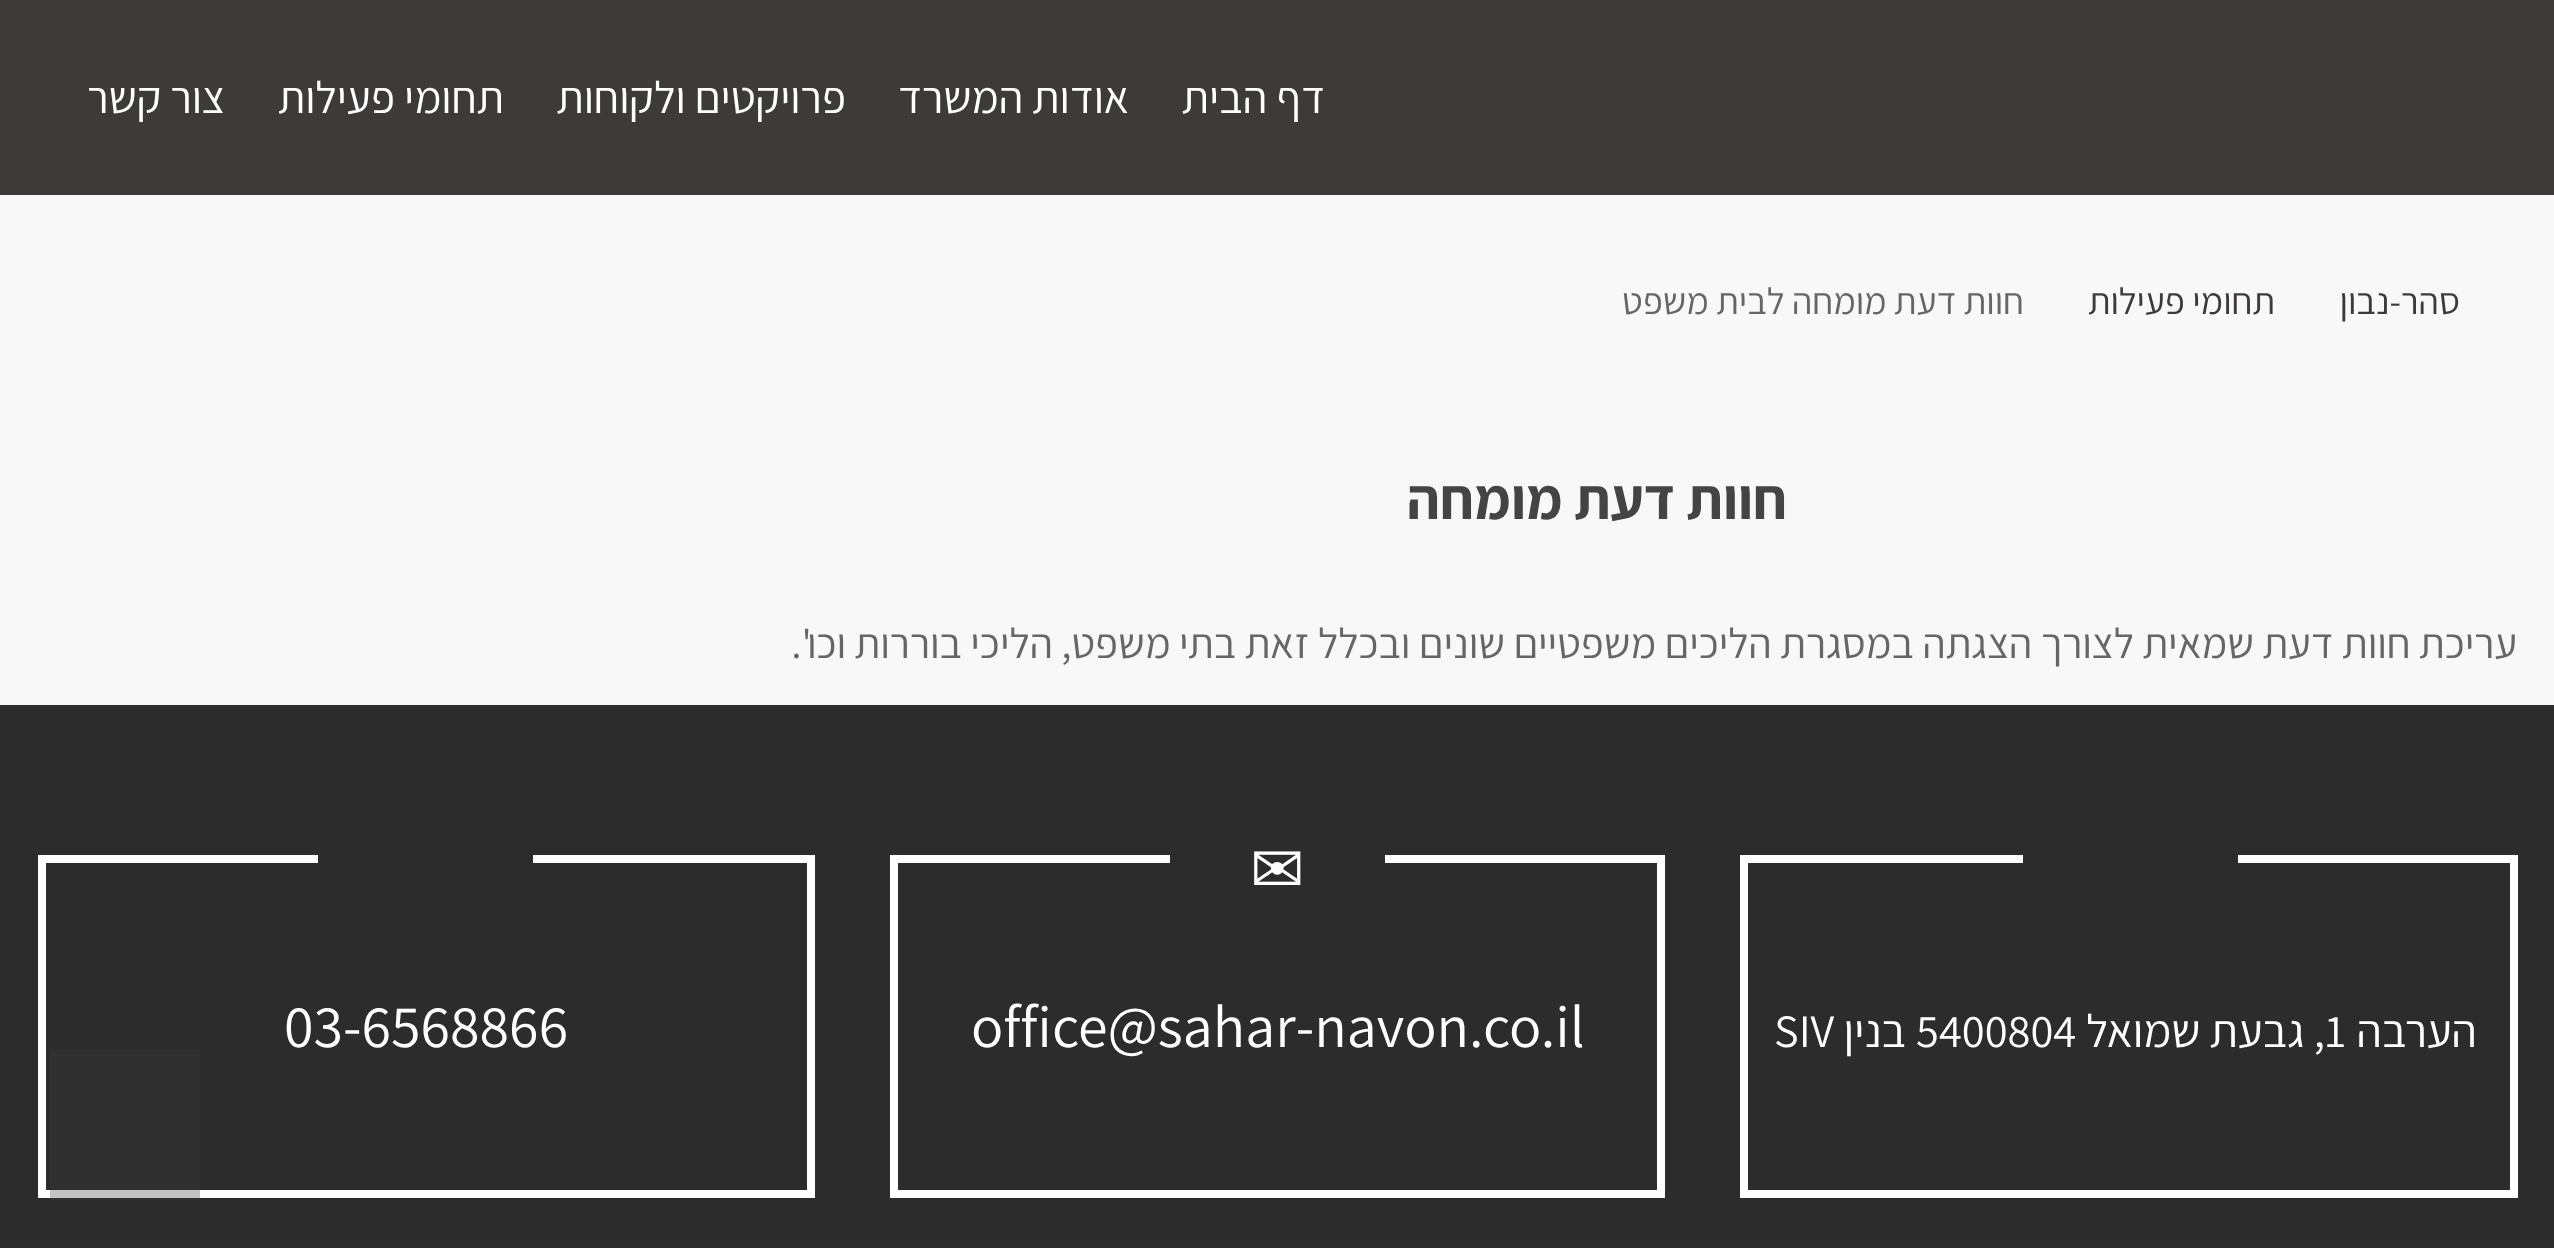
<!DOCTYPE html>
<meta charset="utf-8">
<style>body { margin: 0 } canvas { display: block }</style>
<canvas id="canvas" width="2554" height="1248"></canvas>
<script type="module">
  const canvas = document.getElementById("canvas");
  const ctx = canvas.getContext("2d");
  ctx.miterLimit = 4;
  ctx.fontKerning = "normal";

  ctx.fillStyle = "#f8f8f8";
  ctx.fillRect(0, 0, 2554, 1248);
  ctx.fillStyle = "#3e3a3a";
  ctx.fillRect(0, 0, 2554, 195);
  ctx.direction = "rtl";
  ctx.font = "45px Assistant";
  ctx.fillStyle = "#ffffff";
  ctx.fillText("דף הבית", 1325, 113);
  ctx.fillText("אודות המשרד", 1129, 113);
  ctx.fillText("פרויקטים ולקוחות", 846, 113);
  ctx.fillText("תחומי פעילות", 504, 113);
  ctx.fillText("צור קשר", 225, 113);
  ctx.font = "37.25px Assistant";
  ctx.fillStyle = "#3e3a3a";
  ctx.fillText("סהר-נבון", 2460, 314);
  ctx.fillText("תחומי פעילות", 2275, 314);
  ctx.fillStyle = "#666666";
  ctx.fillText("חוות דעת מומחה לבית משפט", 2024, 314);
  ctx.font = "bold 57.5px Assistant";
  ctx.fillStyle = "#444444";
  ctx.fillText("חוות דעת מומחה", 1787, 519);
  ctx.font = "42.5px Assistant";
  ctx.fillStyle = "#666666";
  ctx.fillText("עריכת חוות דעת שמאית לצורך הצגתה במסגרת הליכים משפטיים שונים ובכלל זאת בתי משפט, הליכי בוררות וכו'.", 2517, 658);
  ctx.fillStyle = "#2c2c2c";
  ctx.fillRect(0, 705, 2554, 543);
  ctx.strokeStyle = "#ffffff";
  ctx.lineWidth = 8;
  ctx.strokeRect(1744, 859, 770, 335);
  ctx.fillRect(2023, 855, 215, 8);
  ctx.font = "46.5px Assistant";
  ctx.fillStyle = "#ffffff";
  ctx.fillText("הערבה", 2477, 1047);
  ctx.direction = "ltr";
  ctx.fillText("1", 2325, 1047);
  ctx.direction = "rtl";
  ctx.fillText(", גבעת שמואל", 2325, 1047);
  ctx.direction = "ltr";
  ctx.fillText("5400804", 1916, 1047);
  ctx.direction = "rtl";
  ctx.fillText("בנין", 1906, 1047);
  ctx.direction = "ltr";
  ctx.fillText("SIV", 1774, 1047);
  ctx.strokeRect(894, 859, 767, 335);
  ctx.fillStyle = "#2c2c2c";
  ctx.fillRect(1170, 855, 215, 8);
  ctx.font = "65px DejaVu Sans";
  ctx.fillStyle = "#ffffff";
  ctx.fillText("✉", 1250, 892);
  ctx.font = "60px Assistant";
  ctx.fillText("office@sahar-navon.co.il", 971, 1047);
  ctx.strokeRect(42, 859, 769, 335);
  ctx.fillStyle = "#2c2c2c";
  ctx.fillRect(318, 855, 215, 8);
  ctx.fillStyle = "#ffffff";
  ctx.fillText("03-6568866", 284, 1047);
  ctx.fillStyle = "rgba(62, 58, 58, 0.3)";
  ctx.fillRect(50, 1050, 150, 150);
</script>
